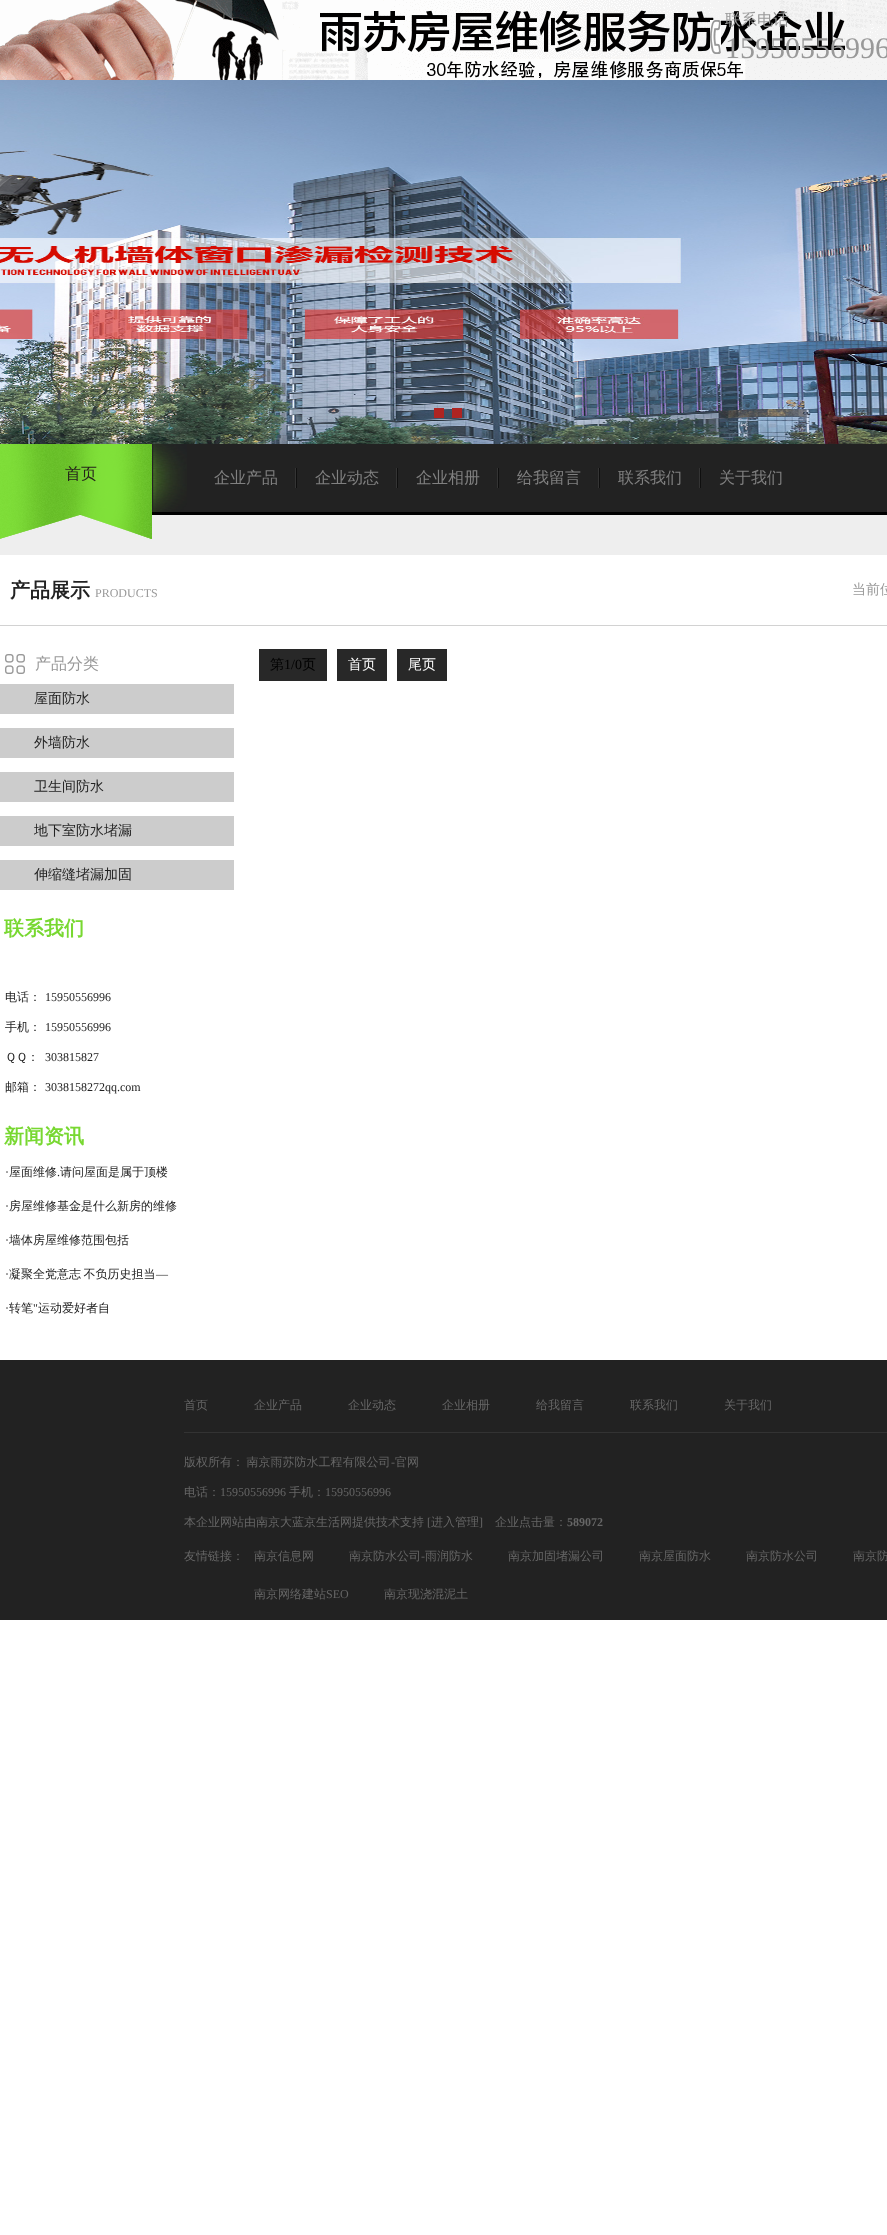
<!DOCTYPE html>
<meta charset="utf-8">
<style>body { margin: 0 } canvas { display: block }</style>
<canvas id="canvas" width="887" height="2235"></canvas>
<script type="module">
  const canvas = document.getElementById("canvas");
  const ctx = canvas.getContext("2d");
  ctx.miterLimit = 4;
  ctx.fontKerning = "normal";
  async function loadImage(src) {
    const img = new Image();
    img.src = src;
    await img.decode();
    return img;
  }

  ctx.fillStyle = "#ffffff";
  ctx.fillRect(0, 0, 887, 2235);
  ctx.drawImage(await loadImage("img1.png"), 0, 0, 887, 80);
  ctx.drawImage(await loadImage("img2.png"), 710, 20, 11, 34);
  ctx.font = "500 16px WenQuanYi Zen Hei";
  ctx.fillStyle = "#999999";
  ctx.fillText("联系电话", 725, 25);
  ctx.font = "30px Liberation Serif";
  ctx.fillText("15950556996", 725, 58);
  ctx.drawImage(await loadImage("img3.png"), 0, 80, 887, 364);
  ctx.fillStyle = "#ae2422";
  ctx.fillRect(434, 408, 10, 10);
  ctx.fillRect(452, 408, 10, 10);
  ctx.fillStyle = "#222222";
  ctx.fillRect(152, 444, 735, 68);
  ctx.fillStyle = "#eeeeee";
  ctx.fillRect(0, 515, 887, 40);
  ctx.fillStyle = "#000000";
  ctx.fillRect(79, 512, 808, 3);
  ctx.drawImage(await loadImage("img4.png"), 0, 444, 187, 95);
  ctx.font = "500 16px WenQuanYi Zen Hei";
  ctx.fillStyle = "#25221b";
  ctx.fillText("首页", 65, 479);
  ctx.drawImage(await loadImage("img5.png"), 295, 468, 2, 20);
  ctx.fillStyle = "#808080";
  ctx.fillText("企业产品", 214, 483);
  ctx.drawImage(await loadImage("img5.png"), 396, 468, 2, 20);
  ctx.fillText("企业动态", 315, 483);
  ctx.drawImage(await loadImage("img5.png"), 497, 468, 2, 20);
  ctx.fillText("企业相册", 416, 483);
  ctx.drawImage(await loadImage("img5.png"), 598, 468, 2, 20);
  ctx.fillText("给我留言", 517, 483);
  ctx.drawImage(await loadImage("img5.png"), 699, 468, 2, 20);
  ctx.fillText("联系我们", 618, 483);
  ctx.fillText("关于我们", 719, 483);
  ctx.fillStyle = "#d2d2d2";
  ctx.fillRect(0, 625, 887, 1);
  ctx.font = "bold 20px WenQuanYi Zen Hei";
  ctx.fillStyle = "#222222";
  ctx.fillText("产品展示", 10, 597);
  ctx.font = "12px Liberation Serif";
  ctx.fillStyle = "#999999";
  ctx.fillText("PRODUCTS", 95, 597);
  ctx.font = "500 14px WenQuanYi Zen Hei";
  ctx.fillText("当前位", 852, 594);
  ctx.drawImage(await loadImage("img6.png"), 5, 654, 20, 20);
  ctx.font = "500 16px WenQuanYi Zen Hei";
  ctx.fillText("产品分类", 35, 669);
  ctx.fillStyle = "#cccccc";
  ctx.fillRect(0, 684, 234, 30);
  ctx.font = "500 14px WenQuanYi Zen Hei";
  ctx.fillStyle = "#222222";
  ctx.fillText("屋面防水", 34, 703);
  ctx.fillStyle = "#cccccc";
  ctx.fillRect(0, 728, 234, 30);
  ctx.fillStyle = "#222222";
  ctx.fillText("外墙防水", 34, 747);
  ctx.fillStyle = "#cccccc";
  ctx.fillRect(0, 772, 234, 30);
  ctx.fillStyle = "#222222";
  ctx.fillText("卫生间防水", 34, 791);
  ctx.fillStyle = "#cccccc";
  ctx.fillRect(0, 816, 234, 30);
  ctx.fillStyle = "#222222";
  ctx.fillText("地下室防水堵漏", 34, 835);
  ctx.fillStyle = "#cccccc";
  ctx.fillRect(0, 860, 234, 30);
  ctx.fillStyle = "#222222";
  ctx.fillText("伸缩缝堵漏加固", 34, 879);
  ctx.font = "bold 20px WenQuanYi Zen Hei";
  ctx.fillStyle = "#78d831";
  ctx.fillText("联系我们", 4, 935);
  ctx.font = "500 12px WenQuanYi Zen Hei";
  ctx.fillStyle = "#222222";
  ctx.fillText("电话：", 5, 1001);
  ctx.font = "12px Liberation Serif";
  ctx.fillText("15950556996", 45, 1001);
  ctx.font = "500 12px WenQuanYi Zen Hei";
  ctx.fillText("手机：", 5, 1031);
  ctx.font = "12px Liberation Serif";
  ctx.fillText("15950556996", 45, 1031);
  ctx.font = "500 12px WenQuanYi Zen Hei";
  ctx.fillText("ＱＱ：", 5, 1061);
  ctx.font = "12px Liberation Serif";
  ctx.fillText("303815827", 45, 1061);
  ctx.font = "500 12px WenQuanYi Zen Hei";
  ctx.fillText("邮箱：", 5, 1091);
  ctx.font = "12px Liberation Serif";
  ctx.fillText("3038158272qq.com", 45, 1091);
  ctx.font = "bold 20px WenQuanYi Zen Hei";
  ctx.fillStyle = "#78d831";
  ctx.fillText("新闻资讯", 4, 1143);
  ctx.font = "12px Liberation Serif";
  ctx.fillStyle = "#222222";
  ctx.fillText("·", 5, 1176);
  ctx.font = "500 12px WenQuanYi Zen Hei";
  ctx.fillText("屋面维修", 9, 1176);
  ctx.fillText("请问屋面是属于顶楼", 60, 1176);
  ctx.font = "12px Liberation Serif";
  ctx.fillText(".", 57, 1176);
  ctx.fillText("·", 5, 1210);
  ctx.font = "500 12px WenQuanYi Zen Hei";
  ctx.fillText("房屋维修基金是什么新房的维修", 9, 1210);
  ctx.font = "12px Liberation Serif";
  ctx.fillText("·", 5, 1244);
  ctx.font = "500 12px WenQuanYi Zen Hei";
  ctx.fillText("墙体房屋维修范围包括", 9, 1244);
  ctx.font = "12px Liberation Serif";
  ctx.fillText("·", 5, 1278);
  ctx.wordSpacing = "-1px";
  ctx.font = "500 12px WenQuanYi Zen Hei";
  ctx.fillText("凝聚全党意志 不负历史担当", 9, 1278);
  ctx.wordSpacing = "0px";
  ctx.font = "12px Liberation Serif";
  ctx.fillText("—", 156, 1278);
  ctx.font = "500 12px WenQuanYi Zen Hei";
  ctx.fillText("转笔", 9, 1312);
  ctx.font = "12px Liberation Serif";
  ctx.fillText("\"", 33, 1312);
  ctx.font = "500 12px WenQuanYi Zen Hei";
  ctx.fillText("运动爱好者自", 38, 1312);
  ctx.font = "12px Liberation Serif";
  ctx.fillText("·", 5, 1312);
  ctx.fillStyle = "#282828";
  ctx.fillRect(259, 649, 68, 32);
  ctx.font = "500 14px WenQuanYi Zen Hei";
  ctx.fillStyle = "#000000";
  ctx.fillText("第", 270, 669);
  ctx.font = "14px Liberation Serif";
  ctx.fillText("1/0", 284, 669);
  ctx.font = "500 14px WenQuanYi Zen Hei";
  ctx.fillText("页", 302, 669);
  ctx.fillStyle = "#282828";
  ctx.fillRect(337, 649, 50, 32);
  ctx.fillStyle = "#ffffff";
  ctx.fillText("首页", 348, 669);
  ctx.fillStyle = "#282828";
  ctx.fillRect(397, 649, 50, 32);
  ctx.fillStyle = "#ffffff";
  ctx.fillText("尾页", 408, 669);
  ctx.fillStyle = "#222222";
  ctx.fillRect(0, 1360, 887, 260);
  ctx.fillStyle = "#333333";
  ctx.fillRect(184, 1432, 703, 1);
  ctx.font = "500 12px WenQuanYi Zen Hei";
  ctx.fillStyle = "#666666";
  ctx.fillText("首页", 184, 1409);
  ctx.fillText("企业产品", 254, 1409);
  ctx.fillText("企业动态", 348, 1409);
  ctx.fillText("企业相册", 442, 1409);
  ctx.fillText("给我留言", 536, 1409);
  ctx.fillText("联系我们", 630, 1409);
  ctx.fillText("关于我们", 724, 1409);
  ctx.wordSpacing = "-1px";
  ctx.fillText("版权所有： 南京雨苏防水工程有限公司", 184, 1466);
  ctx.wordSpacing = "0px";
  ctx.font = "12px Liberation Serif";
  ctx.fillText("-", 391, 1466);
  ctx.font = "500 12px WenQuanYi Zen Hei";
  ctx.fillText("官网", 395, 1466);
  ctx.fillText("电话：", 184, 1496);
  ctx.font = "12px Liberation Serif";
  ctx.fillText("15950556996", 220, 1496);
  ctx.font = "500 12px WenQuanYi Zen Hei";
  ctx.fillText("手机：", 289, 1496);
  ctx.font = "12px Liberation Serif";
  ctx.fillText("15950556996", 325, 1496);
  ctx.font = "500 12px WenQuanYi Zen Hei";
  ctx.fillText("本企业网站由南京大蓝京生活网提供技术支持", 184, 1526);
  ctx.font = "12px Liberation Serif";
  ctx.fillText("[", 427, 1526);
  ctx.font = "500 12px WenQuanYi Zen Hei";
  ctx.fillText("进入管理", 431, 1526);
  ctx.font = "12px Liberation Serif";
  ctx.fillText("]", 479, 1526);
  ctx.font = "500 12px WenQuanYi Zen Hei";
  ctx.fillText("企业点击量：", 495, 1526);
  ctx.font = "bold 12px Liberation Serif";
  ctx.fillText("589072", 567, 1526);
  ctx.font = "500 12px WenQuanYi Zen Hei";
  ctx.fillText("友情链接：", 184, 1560);
  ctx.fillText("南京信息网", 254, 1560);
  ctx.fillText("南京防水公司", 349, 1560);
  ctx.font = "12px Liberation Serif";
  ctx.fillText("-", 421, 1560);
  ctx.font = "500 12px WenQuanYi Zen Hei";
  ctx.fillText("雨润防水", 425, 1560);
  ctx.fillText("南京加固堵漏公司", 508, 1560);
  ctx.fillText("南京屋面防水", 639, 1560);
  ctx.fillText("南京防水公司", 746, 1560);
  ctx.fillText("南京防", 853, 1560);
  ctx.fillText("南京网络建站", 254, 1598);
  ctx.font = "12px Liberation Serif";
  ctx.fillText("SEO", 326, 1598);
  ctx.font = "500 12px WenQuanYi Zen Hei";
  ctx.fillText("南京现浇混泥土", 384, 1598);
</script>
